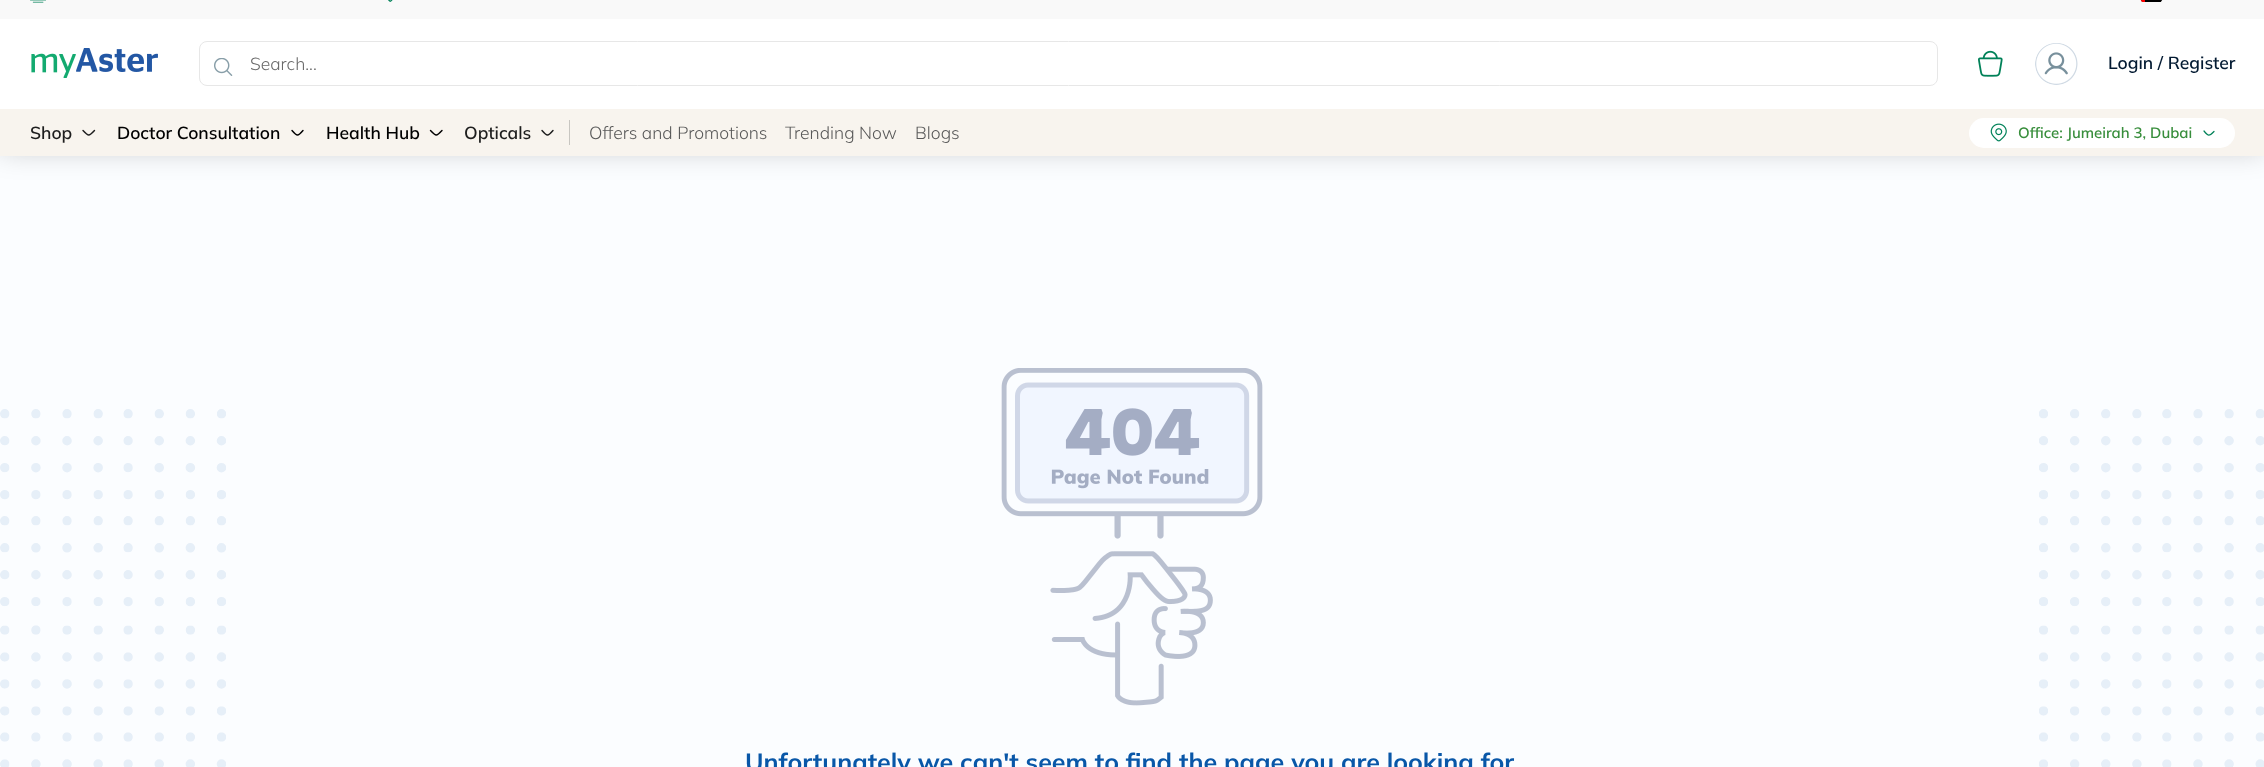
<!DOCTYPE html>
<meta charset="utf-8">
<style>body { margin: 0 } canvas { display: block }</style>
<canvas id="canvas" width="2264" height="767"></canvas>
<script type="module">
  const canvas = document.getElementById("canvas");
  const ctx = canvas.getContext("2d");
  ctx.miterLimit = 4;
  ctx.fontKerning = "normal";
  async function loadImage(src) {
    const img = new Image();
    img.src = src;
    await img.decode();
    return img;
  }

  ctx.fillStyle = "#fbfdff";
  ctx.fillRect(0, 0, 2264, 767);
  ctx.fillStyle = "#f9f9f9";
  ctx.fillRect(0, 0, 2264, 19);
  ctx.drawImage(await loadImage("img1.png"), 30, 0, 16, 3);
  ctx.drawImage(await loadImage("img2.png"), 388, 0, 5, 2);
  ctx.save();
  ctx.beginPath();
  ctx.roundRect(2139, -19, 25, 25, 12.5);
  ctx.clip();
  ctx.fillStyle = "#000000";
  ctx.fillRect(2139, 0, 25, 2);
  ctx.fillStyle = "#ff0000";
  ctx.fillRect(2139, 0, 6, 2);
  ctx.restore();
  ctx.fillStyle = "rgba(0, 0, 0, 0.25)";
  ctx.filter = "blur(15px)";
  ctx.beginPath();
  ctx.rect(0, 100, 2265, 48);
  ctx.fill();
  ctx.filter = "none";
  ctx.fillStyle = "#ffffff";
  ctx.fillRect(0, 19, 2264, 90);
  ctx.drawImage(await loadImage("img3.png"), 31, 48, 127, 30);
  ctx.beginPath();
  ctx.roundRect(199.5, 41.5, 1738, 44, 7.5);
  ctx.strokeStyle = "#e7e7e7";
  ctx.stroke();
  ctx.drawImage(await loadImage("img4.png"), 214, 58, 19, 18);
  ctx.font = "200 17.5px 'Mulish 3'";
  ctx.fillStyle = "#696969";
  ctx.fillText("Search...", 250, 70);
  ctx.drawImage(await loadImage("img5.png"), 1978, 50, 25, 27);
  ctx.drawImage(await loadImage("img6.png"), 2035, 43, 43, 42);
  ctx.font = "200 17.5px 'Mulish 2'";
  ctx.fillStyle = "#031a32";
  ctx.fillText("Login / Register", 2108, 69);
  ctx.fillStyle = "#f8f4ee";
  ctx.fillRect(0, 109, 2264, 47);
  ctx.fillStyle = "#1e1e1e";
  ctx.fillText("Shop", 30, 139);
  ctx.beginPath();
  ctx.moveTo(94.5, 130.5);
  ctx.bezierCurveTo(89, 136.5, 88.5, 136.5, 83, 130.5);
  ctx.strokeStyle = "#1e1e1e";
  ctx.lineWidth = 1.4;
  ctx.lineCap = "round";
  ctx.lineJoin = "round";
  ctx.stroke();
  ctx.fillStyle = "#000000";
  ctx.fillText("Doctor Consultation", 117, 139);
  ctx.beginPath();
  ctx.moveTo(303, 130.5);
  ctx.bezierCurveTo(298, 136.5, 297, 136.5, 292, 130.5);
  ctx.strokeStyle = "#000000";
  ctx.stroke();
  ctx.fillText("Health Hub", 326, 139);
  ctx.beginPath();
  ctx.moveTo(442, 130.5);
  ctx.bezierCurveTo(436.5, 136.5, 436, 136.5, 430.5, 130.5);
  ctx.stroke();
  ctx.fillStyle = "#1e1e1e";
  ctx.fillText("Opticals", 464, 139);
  ctx.beginPath();
  ctx.moveTo(553, 130.5);
  ctx.bezierCurveTo(548, 136.5, 547, 136.5, 542, 130.5);
  ctx.strokeStyle = "#1e1e1e";
  ctx.stroke();
  ctx.fillStyle = "#c8c6c1";
  ctx.fillRect(569, 120, 1, 25);
  ctx.font = "200 17.5px 'Mulish 3'";
  ctx.fillStyle = "#595959";
  ctx.fillText("Offers and Promotions", 589, 139);
  ctx.fillText("Trending Now", 785, 139);
  ctx.fillText("Blogs", 915, 139);
  ctx.fillStyle = "#ffffff";
  ctx.beginPath();
  ctx.roundRect(1969, 118, 266, 30, 15);
  ctx.fill();
  ctx.drawImage(await loadImage("img7.png"), 1990, 123, 17, 19);
  ctx.font = "200 15px 'Mulish 2'";
  ctx.fillStyle = "#388e3c";
  ctx.fillText("Office: Jumeirah 3, Dubai", 2018, 138);
  ctx.beginPath();
  ctx.moveTo(2214, 131.5);
  ctx.bezierCurveTo(2209, 136.5, 2208.5, 136.5, 2204, 131);
  ctx.strokeStyle = "#008158";
  ctx.lineWidth = 1.2;
  ctx.stroke();
  ctx.drawImage(await loadImage("img8.png"), 0, 409, 2264, 358);
  ctx.drawImage(await loadImage("img9.png"), 1001, 368, 262, 338);
  ctx.font = "200 25px Mulish";
  ctx.fillStyle = "#0957a8";
  ctx.fillText("Unfortunately we can't seem to find the page you are looking for", 745, 771);
</script>
